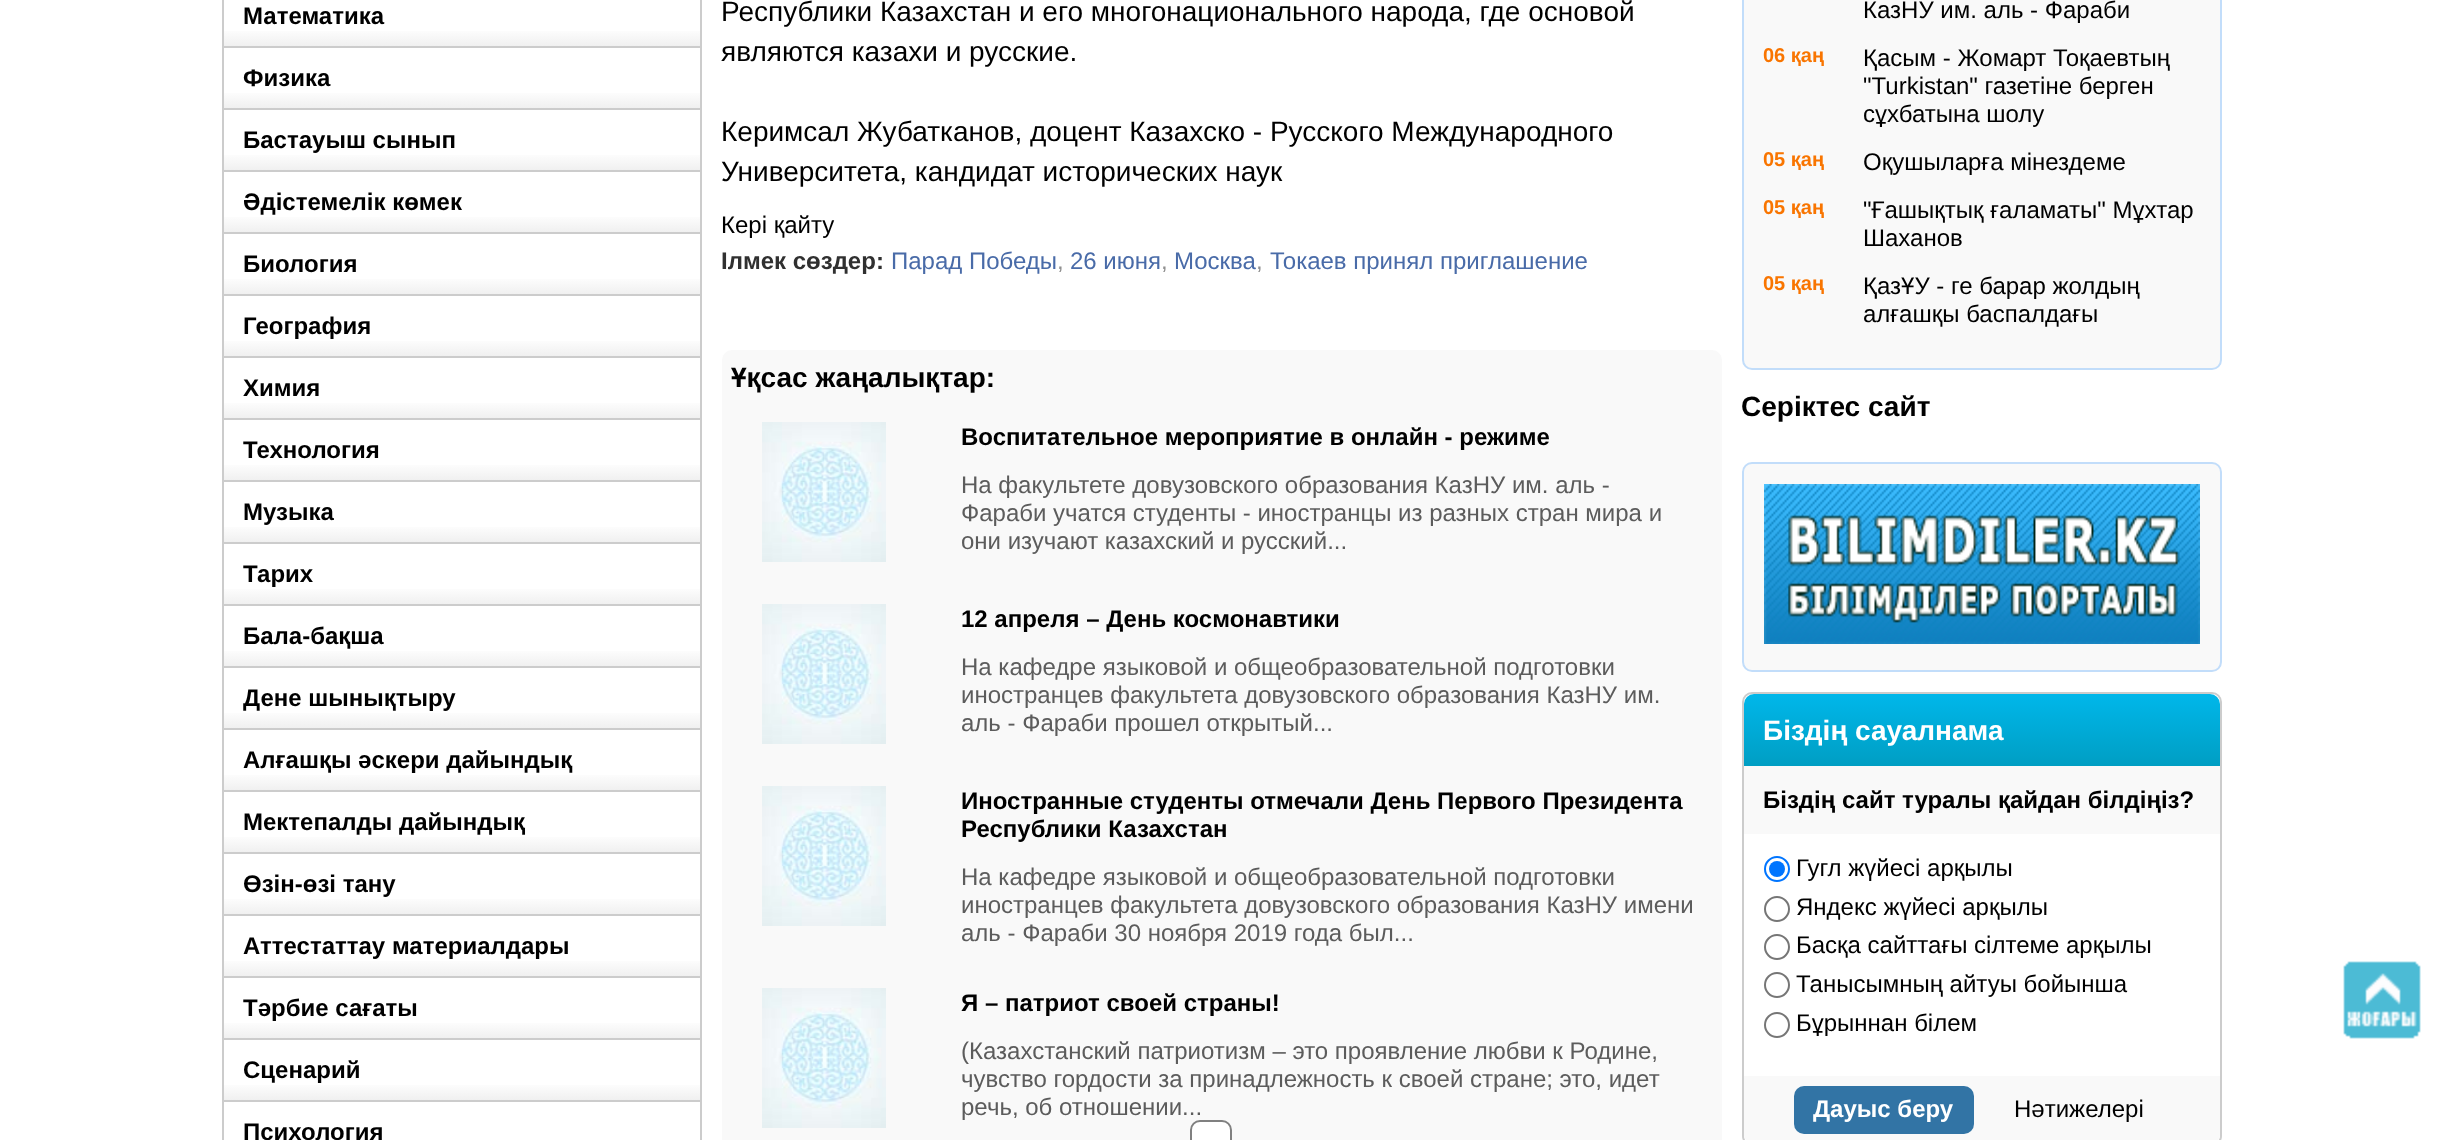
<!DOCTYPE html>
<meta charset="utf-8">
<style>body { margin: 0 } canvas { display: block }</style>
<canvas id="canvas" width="2442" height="1140"></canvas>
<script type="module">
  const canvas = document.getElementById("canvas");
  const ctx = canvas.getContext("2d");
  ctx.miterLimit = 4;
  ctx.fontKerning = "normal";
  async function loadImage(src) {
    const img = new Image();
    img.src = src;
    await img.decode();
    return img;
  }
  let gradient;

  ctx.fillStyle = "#ffffff";
  ctx.fillRect(0, 0, 2442, 1140);
  ctx.strokeStyle = "#cccccc";
  ctx.lineWidth = 2;
  ctx.strokeRect(223, -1, 478, 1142);
  gradient = ctx.createLinearGradient(462, -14, 462, 46);
  gradient.addColorStop(0, "#ffffff");
  gradient.addColorStop(0.7, "#ffffff");
  gradient.addColorStop(1, "#f0f0f0");
  ctx.fillStyle = gradient;
  ctx.fillRect(224, 31, 476, 15);
  ctx.fillStyle = "#cccccc";
  ctx.fillRect(224, 46, 476, 2);
  ctx.font = "bold 24px Liberation Sans";
  ctx.fillStyle = "#000000";
  ctx.fillText("Математика", 243, 24);
  gradient = ctx.createLinearGradient(462, 48, 462, 108);
  gradient.addColorStop(0, "#ffffff");
  gradient.addColorStop(0.7, "#ffffff");
  gradient.addColorStop(1, "#f0f0f0");
  ctx.fillStyle = gradient;
  ctx.fillRect(224, 93, 476, 15);
  ctx.fillStyle = "#cccccc";
  ctx.fillRect(224, 108, 476, 2);
  ctx.fillStyle = "#000000";
  ctx.fillText("Физика", 243, 86);
  gradient = ctx.createLinearGradient(462, 110, 462, 170);
  gradient.addColorStop(0, "#ffffff");
  gradient.addColorStop(0.7, "#ffffff");
  gradient.addColorStop(1, "#f0f0f0");
  ctx.fillStyle = gradient;
  ctx.fillRect(224, 155, 476, 15);
  ctx.fillStyle = "#cccccc";
  ctx.fillRect(224, 170, 476, 2);
  ctx.fillStyle = "#000000";
  ctx.fillText("Бастауыш сынып", 243, 148);
  gradient = ctx.createLinearGradient(462, 172, 462, 232);
  gradient.addColorStop(0, "#ffffff");
  gradient.addColorStop(0.7, "#ffffff");
  gradient.addColorStop(1, "#f0f0f0");
  ctx.fillStyle = gradient;
  ctx.fillRect(224, 217, 476, 15);
  ctx.fillStyle = "#cccccc";
  ctx.fillRect(224, 232, 476, 2);
  ctx.fillStyle = "#000000";
  ctx.fillText("Әдістемелік көмек", 243, 210);
  gradient = ctx.createLinearGradient(462, 234, 462, 294);
  gradient.addColorStop(0, "#ffffff");
  gradient.addColorStop(0.7, "#ffffff");
  gradient.addColorStop(1, "#f0f0f0");
  ctx.fillStyle = gradient;
  ctx.fillRect(224, 279, 476, 15);
  ctx.fillStyle = "#cccccc";
  ctx.fillRect(224, 294, 476, 2);
  ctx.fillStyle = "#000000";
  ctx.fillText("Биология", 243, 272);
  gradient = ctx.createLinearGradient(462, 296, 462, 356);
  gradient.addColorStop(0, "#ffffff");
  gradient.addColorStop(0.7, "#ffffff");
  gradient.addColorStop(1, "#f0f0f0");
  ctx.fillStyle = gradient;
  ctx.fillRect(224, 341, 476, 15);
  ctx.fillStyle = "#cccccc";
  ctx.fillRect(224, 356, 476, 2);
  ctx.fillStyle = "#000000";
  ctx.fillText("География", 243, 334);
  gradient = ctx.createLinearGradient(462, 358, 462, 418);
  gradient.addColorStop(0, "#ffffff");
  gradient.addColorStop(0.7, "#ffffff");
  gradient.addColorStop(1, "#f0f0f0");
  ctx.fillStyle = gradient;
  ctx.fillRect(224, 403, 476, 15);
  ctx.fillStyle = "#cccccc";
  ctx.fillRect(224, 418, 476, 2);
  ctx.fillStyle = "#000000";
  ctx.fillText("Химия", 243, 396);
  gradient = ctx.createLinearGradient(462, 420, 462, 480);
  gradient.addColorStop(0, "#ffffff");
  gradient.addColorStop(0.7, "#ffffff");
  gradient.addColorStop(1, "#f0f0f0");
  ctx.fillStyle = gradient;
  ctx.fillRect(224, 465, 476, 15);
  ctx.fillStyle = "#cccccc";
  ctx.fillRect(224, 480, 476, 2);
  ctx.fillStyle = "#000000";
  ctx.fillText("Технология", 243, 458);
  gradient = ctx.createLinearGradient(462, 482, 462, 542);
  gradient.addColorStop(0, "#ffffff");
  gradient.addColorStop(0.7, "#ffffff");
  gradient.addColorStop(1, "#f0f0f0");
  ctx.fillStyle = gradient;
  ctx.fillRect(224, 527, 476, 15);
  ctx.fillStyle = "#cccccc";
  ctx.fillRect(224, 542, 476, 2);
  ctx.fillStyle = "#000000";
  ctx.fillText("Музыка", 243, 520);
  gradient = ctx.createLinearGradient(462, 544, 462, 604);
  gradient.addColorStop(0, "#ffffff");
  gradient.addColorStop(0.7, "#ffffff");
  gradient.addColorStop(1, "#f0f0f0");
  ctx.fillStyle = gradient;
  ctx.fillRect(224, 589, 476, 15);
  ctx.fillStyle = "#cccccc";
  ctx.fillRect(224, 604, 476, 2);
  ctx.fillStyle = "#000000";
  ctx.fillText("Тарих", 243, 582);
  gradient = ctx.createLinearGradient(462, 606, 462, 666);
  gradient.addColorStop(0, "#ffffff");
  gradient.addColorStop(0.7, "#ffffff");
  gradient.addColorStop(1, "#f0f0f0");
  ctx.fillStyle = gradient;
  ctx.fillRect(224, 651, 476, 15);
  ctx.fillStyle = "#cccccc";
  ctx.fillRect(224, 666, 476, 2);
  ctx.fillStyle = "#000000";
  ctx.fillText("Бала-бақша", 243, 644);
  gradient = ctx.createLinearGradient(462, 668, 462, 728);
  gradient.addColorStop(0, "#ffffff");
  gradient.addColorStop(0.7, "#ffffff");
  gradient.addColorStop(1, "#f0f0f0");
  ctx.fillStyle = gradient;
  ctx.fillRect(224, 713, 476, 15);
  ctx.fillStyle = "#cccccc";
  ctx.fillRect(224, 728, 476, 2);
  ctx.fillStyle = "#000000";
  ctx.fillText("Дене шынықтыру", 243, 706);
  gradient = ctx.createLinearGradient(462, 730, 462, 790);
  gradient.addColorStop(0, "#ffffff");
  gradient.addColorStop(0.7, "#ffffff");
  gradient.addColorStop(1, "#f0f0f0");
  ctx.fillStyle = gradient;
  ctx.fillRect(224, 775, 476, 15);
  ctx.fillStyle = "#cccccc";
  ctx.fillRect(224, 790, 476, 2);
  ctx.fillStyle = "#000000";
  ctx.fillText("Алғашқы әскери дайындық", 243, 768);
  gradient = ctx.createLinearGradient(462, 792, 462, 852);
  gradient.addColorStop(0, "#ffffff");
  gradient.addColorStop(0.7, "#ffffff");
  gradient.addColorStop(1, "#f0f0f0");
  ctx.fillStyle = gradient;
  ctx.fillRect(224, 837, 476, 15);
  ctx.fillStyle = "#cccccc";
  ctx.fillRect(224, 852, 476, 2);
  ctx.fillStyle = "#000000";
  ctx.fillText("Мектепалды дайындық", 243, 830);
  gradient = ctx.createLinearGradient(462, 854, 462, 914);
  gradient.addColorStop(0, "#ffffff");
  gradient.addColorStop(0.7, "#ffffff");
  gradient.addColorStop(1, "#f0f0f0");
  ctx.fillStyle = gradient;
  ctx.fillRect(224, 899, 476, 15);
  ctx.fillStyle = "#cccccc";
  ctx.fillRect(224, 914, 476, 2);
  ctx.fillStyle = "#000000";
  ctx.fillText("Өзін-өзі тану", 243, 892);
  gradient = ctx.createLinearGradient(462, 916, 462, 976);
  gradient.addColorStop(0, "#ffffff");
  gradient.addColorStop(0.7, "#ffffff");
  gradient.addColorStop(1, "#f0f0f0");
  ctx.fillStyle = gradient;
  ctx.fillRect(224, 961, 476, 15);
  ctx.fillStyle = "#cccccc";
  ctx.fillRect(224, 976, 476, 2);
  ctx.fillStyle = "#000000";
  ctx.fillText("Аттестаттау материалдары", 243, 954);
  gradient = ctx.createLinearGradient(462, 978, 462, 1038);
  gradient.addColorStop(0, "#ffffff");
  gradient.addColorStop(0.7, "#ffffff");
  gradient.addColorStop(1, "#f0f0f0");
  ctx.fillStyle = gradient;
  ctx.fillRect(224, 1023, 476, 15);
  ctx.fillStyle = "#cccccc";
  ctx.fillRect(224, 1038, 476, 2);
  ctx.fillStyle = "#000000";
  ctx.fillText("Тәрбие сағаты", 243, 1016);
  gradient = ctx.createLinearGradient(462, 1040, 462, 1100);
  gradient.addColorStop(0, "#ffffff");
  gradient.addColorStop(0.7, "#ffffff");
  gradient.addColorStop(1, "#f0f0f0");
  ctx.fillStyle = gradient;
  ctx.fillRect(224, 1085, 476, 15);
  ctx.fillStyle = "#cccccc";
  ctx.fillRect(224, 1100, 476, 2);
  ctx.fillStyle = "#000000";
  ctx.fillText("Сценарий", 243, 1078);
  ctx.fillText("Психология", 243, 1140);
  ctx.font = "28px Liberation Sans";
  ctx.fillText("Республики Казахстан и его многонационального народа, где основой", 721, 21);
  ctx.fillText("являются казахи и русские.", 721, 61);
  ctx.fillText("Керимсал Жубатканов, доцент Казахско - Русского Международного", 721, 141);
  ctx.fillText("Университета, кандидат исторических наук", 721, 181);
  ctx.font = "24px Liberation Sans";
  ctx.fillText("Кері қайту", 721, 233);
  ctx.font = "bold 24px Liberation Sans";
  ctx.fillStyle = "#303030";
  ctx.fillText("Ілмек сөздер:", 721, 269);
  ctx.font = "24px Liberation Sans";
  ctx.fillStyle = "#496ba8";
  ctx.fillText("Парад Победы", 891, 269);
  ctx.fillStyle = "#909090";
  ctx.fillText(",", 1057, 269);
  ctx.fillStyle = "#496ba8";
  ctx.fillText("26 июня", 1070, 269);
  ctx.fillStyle = "#909090";
  ctx.fillText(",", 1161, 269);
  ctx.fillStyle = "#496ba8";
  ctx.fillText("Москва", 1174, 269);
  ctx.fillStyle = "#909090";
  ctx.fillText(",", 1256, 269);
  ctx.fillStyle = "#496ba8";
  ctx.fillText("Токаев принял приглашение", 1270, 269);
  ctx.fillStyle = "#f9f9f9";
  ctx.beginPath();
  ctx.roundRect(722, 350, 1000, 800, 10);
  ctx.fill();
  ctx.font = "bold 28px Liberation Sans";
  ctx.fillStyle = "#000000";
  ctx.fillText("Ұқсас жаңалықтар:", 731, 387);
  ctx.drawImage(await loadImage("img1.png"), 762, 422, 124, 140);
  ctx.font = "bold 24px Liberation Sans";
  ctx.fillText("Воспитательное мероприятие в онлайн - режиме", 961, 445);
  ctx.font = "24px Liberation Sans";
  ctx.fillStyle = "#5c5c5c";
  ctx.fillText("На факультете довузовского образования КазНУ им. аль -", 961, 493);
  ctx.fillText("Фараби учатся студенты - иностранцы из разных стран мира и", 961, 521);
  ctx.fillText("они изучают казахский и русский...", 961, 549);
  ctx.drawImage(await loadImage("img1.png"), 762, 604, 124, 140);
  ctx.font = "bold 24px Liberation Sans";
  ctx.fillStyle = "#000000";
  ctx.fillText("12 апреля – День космонавтики", 961, 627);
  ctx.font = "24px Liberation Sans";
  ctx.fillStyle = "#5c5c5c";
  ctx.fillText("На кафедре языковой и общеобразовательной подготовки", 961, 675);
  ctx.fillText("иностранцев факультета довузовского образования КазНУ им.", 961, 703);
  ctx.fillText("аль - Фараби прошел открытый...", 961, 731);
  ctx.drawImage(await loadImage("img2.png"), 762, 786, 124, 140);
  ctx.font = "bold 24px Liberation Sans";
  ctx.fillStyle = "#000000";
  ctx.fillText("Иностранные студенты отмечали День Первого Президента", 961, 809);
  ctx.fillText("Республики Казахстан", 961, 837);
  ctx.font = "24px Liberation Sans";
  ctx.fillStyle = "#5c5c5c";
  ctx.fillText("На кафедре языковой и общеобразовательной подготовки", 961, 885);
  ctx.fillText("иностранцев факультета довузовского образования КазНУ имени", 961, 913);
  ctx.fillText("аль - Фараби 30 ноября 2019 года был...", 961, 941);
  ctx.drawImage(await loadImage("img3.png"), 762, 988, 124, 140);
  ctx.font = "bold 24px Liberation Sans";
  ctx.fillStyle = "#000000";
  ctx.fillText("Я – патриот своей страны!", 961, 1011);
  ctx.font = "24px Liberation Sans";
  ctx.fillStyle = "#5c5c5c";
  ctx.fillText("(Казахстанский патриотизм – это проявление любви к Родине,", 961, 1059);
  ctx.fillText("чувство гордости за принадлежность к своей стране; это, идет", 961, 1087);
  ctx.fillText("речь, об отношении...", 961, 1115);
  ctx.fillStyle = "#f9f9f9";
  ctx.beginPath();
  ctx.roundRect(1743, -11, 478, 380, 9);
  ctx.fill();
  ctx.strokeStyle = "#c2ddfa";
  ctx.stroke();
  ctx.fillStyle = "#000000";
  ctx.fillText("КазНУ им. аль - Фараби", 1863, 18);
  ctx.font = "bold 20px Liberation Sans";
  ctx.fillStyle = "#f97500";
  ctx.fillText("06 қаң", 1763, 62);
  ctx.font = "24px Liberation Sans";
  ctx.fillStyle = "#000000";
  ctx.fillText("Қасым - Жомарт Тоқаевтың", 1863, 66);
  ctx.fillText("\"Turkistan\" газетіне берген", 1863, 94);
  ctx.fillText("сұхбатына шолу", 1863, 122);
  ctx.font = "bold 20px Liberation Sans";
  ctx.fillStyle = "#f97500";
  ctx.fillText("05 қаң", 1763, 166);
  ctx.font = "24px Liberation Sans";
  ctx.fillStyle = "#000000";
  ctx.fillText("Оқушыларға мінездеме", 1863, 170);
  ctx.font = "bold 20px Liberation Sans";
  ctx.fillStyle = "#f97500";
  ctx.fillText("05 қаң", 1763, 214);
  ctx.font = "24px Liberation Sans";
  ctx.fillStyle = "#000000";
  ctx.fillText("\"Ғашықтық ғаламаты\" Мұхтар", 1863, 218);
  ctx.fillText("Шаханов", 1863, 246);
  ctx.font = "bold 20px Liberation Sans";
  ctx.fillStyle = "#f97500";
  ctx.fillText("05 қаң", 1763, 290);
  ctx.font = "24px Liberation Sans";
  ctx.fillStyle = "#000000";
  ctx.fillText("ҚазҰУ - ге барар жолдың", 1863, 294);
  ctx.fillText("алғашқы баспалдағы", 1863, 322);
  ctx.font = "bold 28px Liberation Sans";
  ctx.fillText("Серіктес сайт", 1741, 416);
  ctx.fillStyle = "#f9f9f9";
  ctx.beginPath();
  ctx.roundRect(1743, 463, 478, 208, 9);
  ctx.fill();
  ctx.stroke();
  ctx.drawImage(await loadImage("img4.png"), 1764, 484, 436, 160);
  ctx.beginPath();
  ctx.roundRect(1743, 693, 478, 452, 9);
  ctx.strokeStyle = "#cccccc";
  ctx.stroke();
  gradient = ctx.createLinearGradient(1982, 694, 1982, 766);
  gradient.addColorStop(0, "#00b7ea");
  gradient.addColorStop(1, "#009ec3");
  ctx.fillStyle = gradient;
  ctx.beginPath();
  ctx.roundRect(1744, 694, 476, 72, [10, 10, 0, 0]);
  ctx.fill();
  ctx.fillStyle = "#ffffff";
  ctx.fillText("Біздің сауалнама", 1763, 740);
  ctx.fillStyle = "#f9f9f9";
  ctx.fillRect(1744, 766, 476, 68);
  ctx.font = "bold 24px Liberation Sans";
  ctx.fillStyle = "#000000";
  ctx.fillText("Біздің сайт туралы қайдан білдіңіз?", 1763, 808);
  ctx.beginPath();
  ctx.arc(1777, 869, 12, 0, Math.PI * 2);
  ctx.strokeStyle = "#0075ff";
  ctx.stroke();
  ctx.fillStyle = "#0075ff";
  ctx.beginPath();
  ctx.arc(1777, 869, 8, 0, Math.PI * 2);
  ctx.fill();
  ctx.font = "24px Liberation Sans";
  ctx.fillStyle = "#000000";
  ctx.fillText("Гугл жүйесі арқылы", 1796, 876);
  ctx.beginPath();
  ctx.arc(1777, 909, 12, 0, Math.PI * 2);
  ctx.strokeStyle = "#767676";
  ctx.stroke();
  ctx.fillText("Яндекс жүйесі арқылы", 1796, 915);
  ctx.beginPath();
  ctx.arc(1777, 947, 12, 0, Math.PI * 2);
  ctx.stroke();
  ctx.fillText("Басқа сайттағы сілтеме арқылы", 1796, 953);
  ctx.beginPath();
  ctx.arc(1777, 985, 12, 0, Math.PI * 2);
  ctx.stroke();
  ctx.fillText("Танысымның айтуы бойынша", 1796, 992);
  ctx.beginPath();
  ctx.arc(1777, 1025, 12, 0, Math.PI * 2);
  ctx.stroke();
  ctx.fillText("Бұрыннан білем", 1796, 1031);
  ctx.fillStyle = "#f9f9f9";
  ctx.beginPath();
  ctx.moveTo(1744, 1076);
  ctx.lineTo(2220, 1076);
  ctx.lineTo(2220, 1134);
  ctx.bezierCurveTo(2220, 1139.5, 2215.5, 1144, 2210, 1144);
  ctx.lineTo(1754, 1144);
  ctx.bezierCurveTo(1748.5, 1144, 1744, 1139.5, 1744, 1134);
  ctx.closePath();
  ctx.fill();
  ctx.fillStyle = "#3274a5";
  ctx.beginPath();
  ctx.roundRect(1794, 1086, 180, 48, 10);
  ctx.fill();
  ctx.font = "bold 24px Liberation Sans";
  ctx.fillStyle = "#ffffff";
  ctx.fillText("Дауыс беру", 1813, 1117);
  ctx.font = "24px Liberation Sans";
  ctx.fillStyle = "#000000";
  ctx.fillText("Нәтижелері", 2014, 1117);
  ctx.drawImage(await loadImage("img5.png"), 2343, 961, 78, 78);
  ctx.fillStyle = "#ffffff";
  ctx.beginPath();
  ctx.roundRect(1191, 1121, 40, 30, 9);
  ctx.fill();
  ctx.strokeStyle = "#808080";
  ctx.stroke();
</script>
